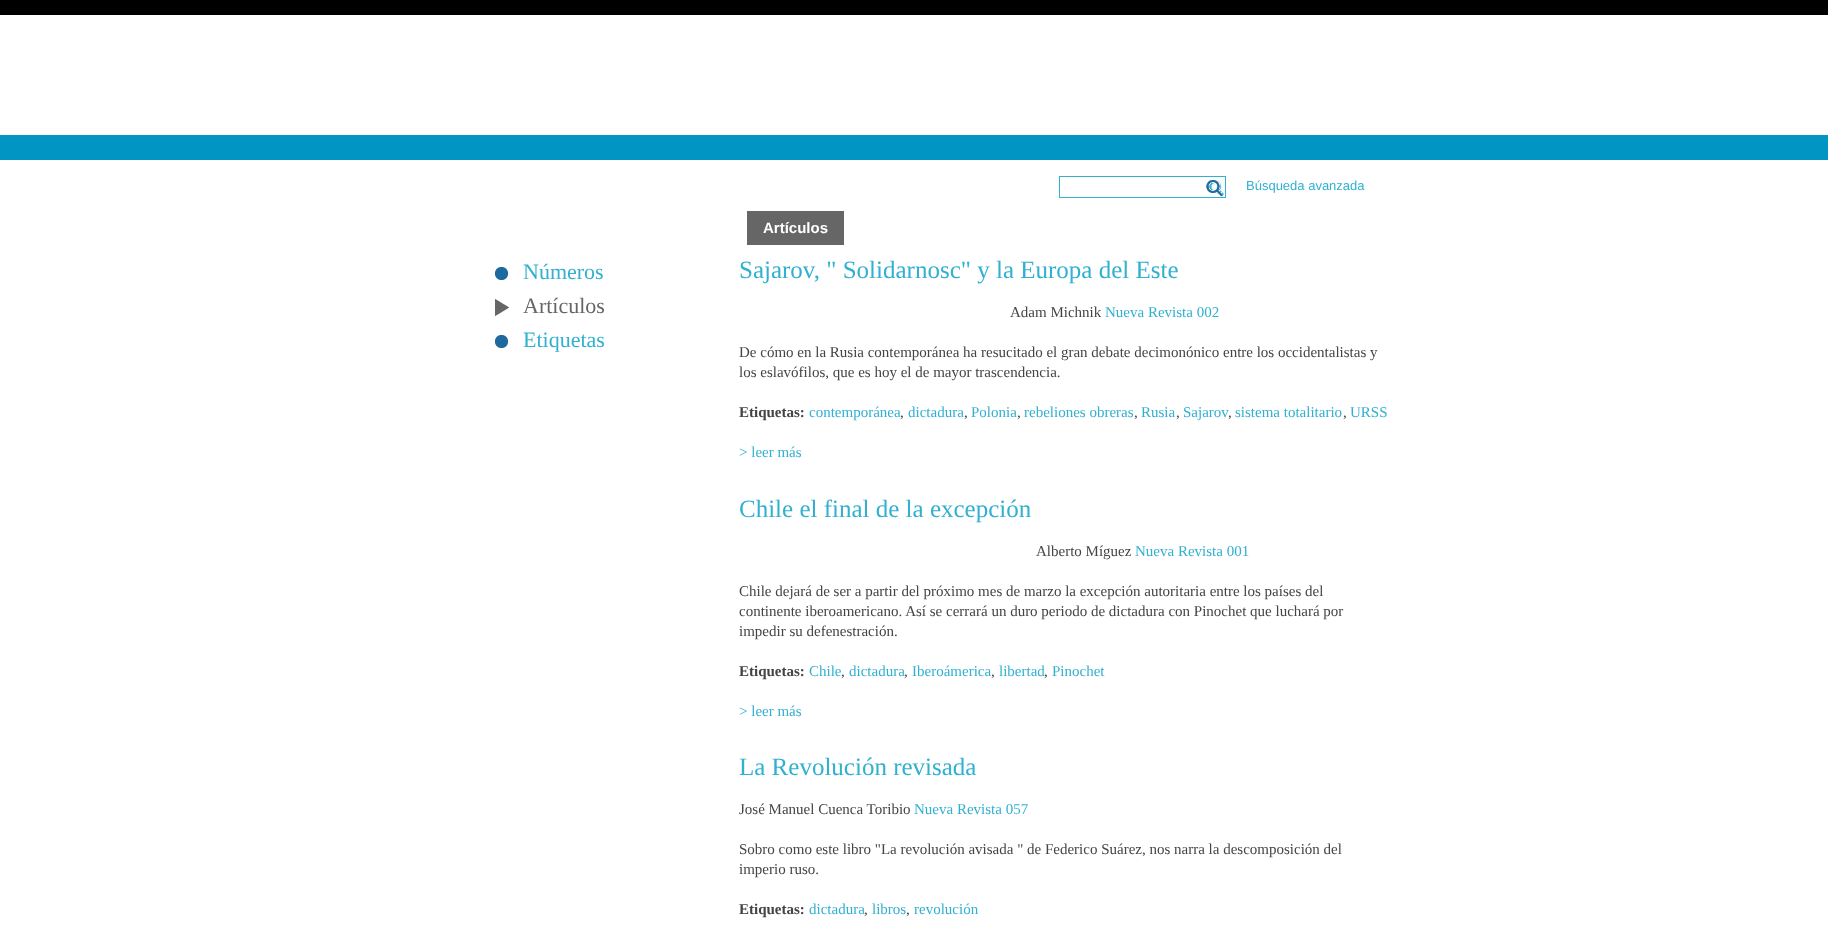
<!DOCTYPE html>
<meta charset="utf-8">
<style>body { margin: 0 } canvas { display: block }</style>
<canvas id="canvas" width="1828" height="939"></canvas>
<script type="module">
  const canvas = document.getElementById("canvas");
  const ctx = canvas.getContext("2d");
  ctx.miterLimit = 4;
  ctx.fontKerning = "normal";
  async function loadImage(src) {
    const img = new Image();
    img.src = src;
    await img.decode();
    return img;
  }

  ctx.fillStyle = "#ffffff";
  ctx.fillRect(0, 0, 1828, 939);
  ctx.drawImage(await loadImage("img1.png"), 0, 0, 1828, 160);
  ctx.drawImage(await loadImage("img2.png"), 1209, 179, 16, 16);
  ctx.strokeStyle = "#31b0d0";
  ctx.strokeRect(1059.5, 176.5, 166, 21);
  ctx.drawImage(await loadImage("img3.png"), 1206, 180, 17, 17);
  ctx.font = "13px Liberation Sans";
  ctx.fillStyle = "#31b0d0";
  ctx.fillText("Búsqueda avanzada", 1246, 190);
  ctx.drawImage(await loadImage("img4.png"), 495, 267, 13, 13);
  ctx.font = "22px Liberation Serif";
  ctx.fillText("Números", 523, 279);
  ctx.drawImage(await loadImage("img5.png"), 495, 299, 14, 17);
  ctx.fillStyle = "#666666";
  ctx.fillText("Artículos", 523, 313);
  ctx.drawImage(await loadImage("img4.png"), 495, 335, 13, 13);
  ctx.fillStyle = "#31b0d0";
  ctx.fillText("Etiquetas", 523, 347);
  ctx.fillStyle = "#666666";
  ctx.fillRect(747, 211, 97, 34);
  ctx.font = "bold 15px Liberation Sans";
  ctx.fillStyle = "#ffffff";
  ctx.fillText("Artículos", 763, 233);
  ctx.font = "25px Liberation Serif";
  ctx.fillStyle = "#31b0d0";
  ctx.fillText("Sajarov, \" Solidarnosc\" y la Europa del Este", 739, 278);
  ctx.font = "15px Liberation Serif";
  ctx.fillStyle = "#444444";
  ctx.fillText("Adam Michnik", 1010, 317);
  ctx.fillStyle = "#31b0d0";
  ctx.fillText("Nueva Revista 002", 1105, 317);
  ctx.fillStyle = "#444444";
  ctx.fillText("De cómo en la Rusia contemporánea ha resucitado el gran debate decimonónico entre los occidentalistas y", 739, 357);
  ctx.fillText("los eslavófilos, que es hoy el de mayor trascendencia.", 739, 377);
  ctx.font = "bold 15px Liberation Serif";
  ctx.fillText("Etiquetas:", 739, 417);
  ctx.font = "15px Liberation Serif";
  ctx.fillStyle = "#31b0d0";
  ctx.fillText("contemporánea", 809, 417);
  ctx.fillStyle = "#444444";
  ctx.fillText(",", 900, 417);
  ctx.fillStyle = "#31b0d0";
  ctx.fillText("dictadura", 908, 417);
  ctx.fillStyle = "#444444";
  ctx.fillText(",", 964, 417);
  ctx.fillStyle = "#31b0d0";
  ctx.fillText("Polonia", 971, 417);
  ctx.fillStyle = "#444444";
  ctx.fillText(",", 1017, 417);
  ctx.fillStyle = "#31b0d0";
  ctx.fillText("rebeliones obreras", 1024, 417);
  ctx.fillStyle = "#444444";
  ctx.fillText(",", 1134, 417);
  ctx.fillStyle = "#31b0d0";
  ctx.fillText("Rusia", 1141, 417);
  ctx.fillStyle = "#444444";
  ctx.fillText(",", 1176, 417);
  ctx.fillStyle = "#31b0d0";
  ctx.fillText("Sajarov", 1183, 417);
  ctx.fillStyle = "#444444";
  ctx.fillText(",", 1228, 417);
  ctx.fillStyle = "#31b0d0";
  ctx.fillText("sistema totalitario", 1235, 417);
  ctx.fillStyle = "#444444";
  ctx.fillText(",", 1343, 417);
  ctx.fillStyle = "#31b0d0";
  ctx.fillText("URSS", 1350, 417);
  ctx.fillText("> leer más", 739, 457);
  ctx.font = "25px Liberation Serif";
  ctx.fillText("Chile el final de la excepción", 739, 517);
  ctx.font = "15px Liberation Serif";
  ctx.fillStyle = "#444444";
  ctx.fillText("Alberto Míguez", 1036, 556);
  ctx.fillStyle = "#31b0d0";
  ctx.fillText("Nueva Revista 001", 1135, 556);
  ctx.fillStyle = "#444444";
  ctx.fillText("Chile dejará de ser a partir del próximo mes de marzo la excepción autoritaria entre los países del", 739, 596);
  ctx.fillText("continente iberoamericano. Así se cerrará un duro periodo de dictadura con Pinochet que luchará por", 739, 616);
  ctx.fillText("impedir su defenestración.", 739, 636);
  ctx.font = "bold 15px Liberation Serif";
  ctx.fillText("Etiquetas:", 739, 676);
  ctx.font = "15px Liberation Serif";
  ctx.fillStyle = "#31b0d0";
  ctx.fillText("Chile", 809, 676);
  ctx.fillStyle = "#444444";
  ctx.fillText(",", 841, 676);
  ctx.fillStyle = "#31b0d0";
  ctx.fillText("dictadura", 849, 676);
  ctx.fillStyle = "#444444";
  ctx.fillText(",", 904, 676);
  ctx.fillStyle = "#31b0d0";
  ctx.fillText("Iberoámerica", 912, 676);
  ctx.fillStyle = "#444444";
  ctx.fillText(",", 991, 676);
  ctx.fillStyle = "#31b0d0";
  ctx.fillText("libertad", 999, 676);
  ctx.fillStyle = "#444444";
  ctx.fillText(",", 1044, 676);
  ctx.fillStyle = "#31b0d0";
  ctx.fillText("Pinochet", 1052, 676);
  ctx.fillText("> leer más", 739, 716);
  ctx.font = "25px Liberation Serif";
  ctx.fillText("La Revolución revisada", 739, 775);
  ctx.font = "15px Liberation Serif";
  ctx.fillStyle = "#444444";
  ctx.fillText("José Manuel Cuenca Toribio", 739, 814);
  ctx.fillStyle = "#31b0d0";
  ctx.fillText("Nueva Revista 057", 914, 814);
  ctx.fillStyle = "#444444";
  ctx.fillText("Sobro como este libro \"La revolución avisada \" de Federico Suárez, nos narra la descomposición del", 739, 854);
  ctx.fillText("imperio ruso.", 739, 874);
  ctx.font = "bold 15px Liberation Serif";
  ctx.fillText("Etiquetas:", 739, 914);
  ctx.font = "15px Liberation Serif";
  ctx.fillStyle = "#31b0d0";
  ctx.fillText("dictadura", 809, 914);
  ctx.fillStyle = "#444444";
  ctx.fillText(",", 864, 914);
  ctx.fillStyle = "#31b0d0";
  ctx.fillText("libros", 872, 914);
  ctx.fillStyle = "#444444";
  ctx.fillText(",", 906, 914);
  ctx.fillStyle = "#31b0d0";
  ctx.fillText("revolución", 914, 914);
</script>
